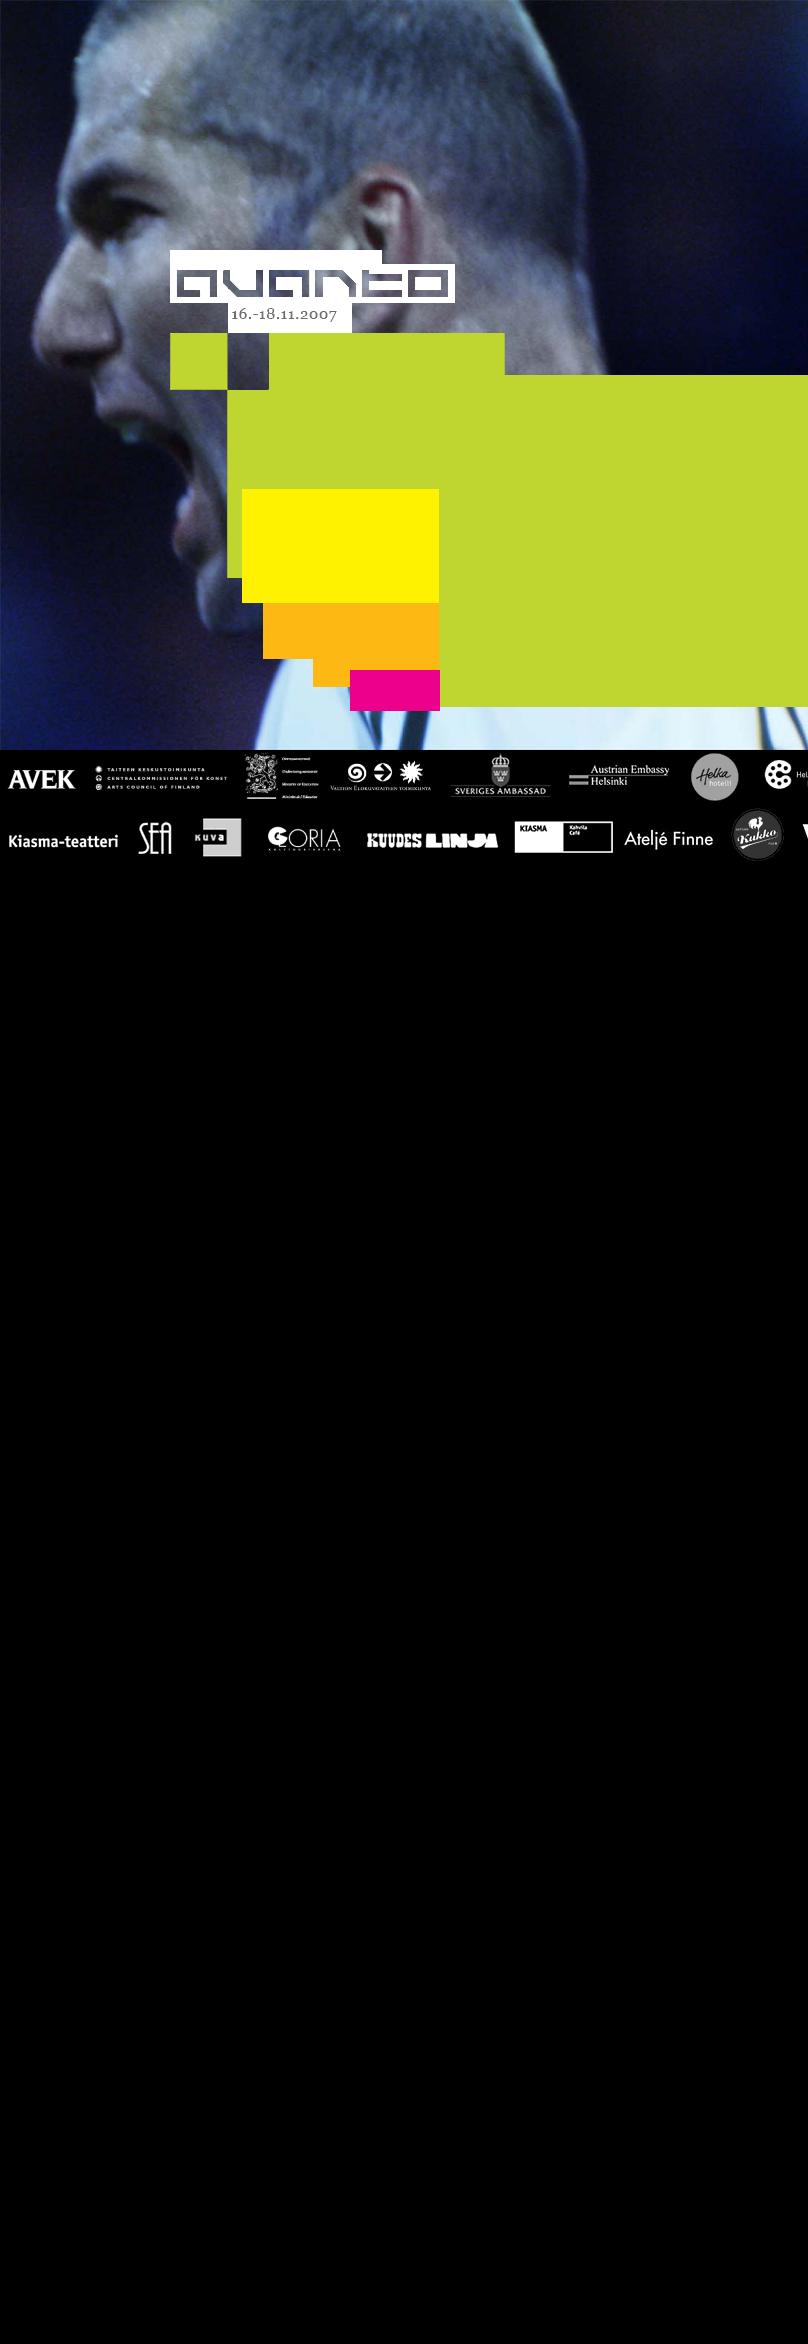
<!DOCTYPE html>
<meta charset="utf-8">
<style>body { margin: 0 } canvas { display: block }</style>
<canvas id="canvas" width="808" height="2344"></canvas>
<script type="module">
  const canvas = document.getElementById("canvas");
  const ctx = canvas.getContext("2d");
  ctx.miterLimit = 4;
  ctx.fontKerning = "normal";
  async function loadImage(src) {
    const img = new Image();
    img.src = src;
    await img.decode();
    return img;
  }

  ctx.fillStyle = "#000000";
  ctx.fillRect(0, 0, 808, 2344);
  ctx.drawImage(await loadImage("img1.png"), 0, 0, 808, 750);
  ctx.drawImage(await loadImage("img2.png"), 170, 250, 285, 83);
  ctx.drawImage(await loadImage("img3.png"), 170, 333, 638, 374);
  ctx.fillStyle = "#ec008c";
  ctx.fillRect(350, 670, 90, 41);
  ctx.drawImage(await loadImage("img4.png"), 7, 752, 801, 109);
</script>
